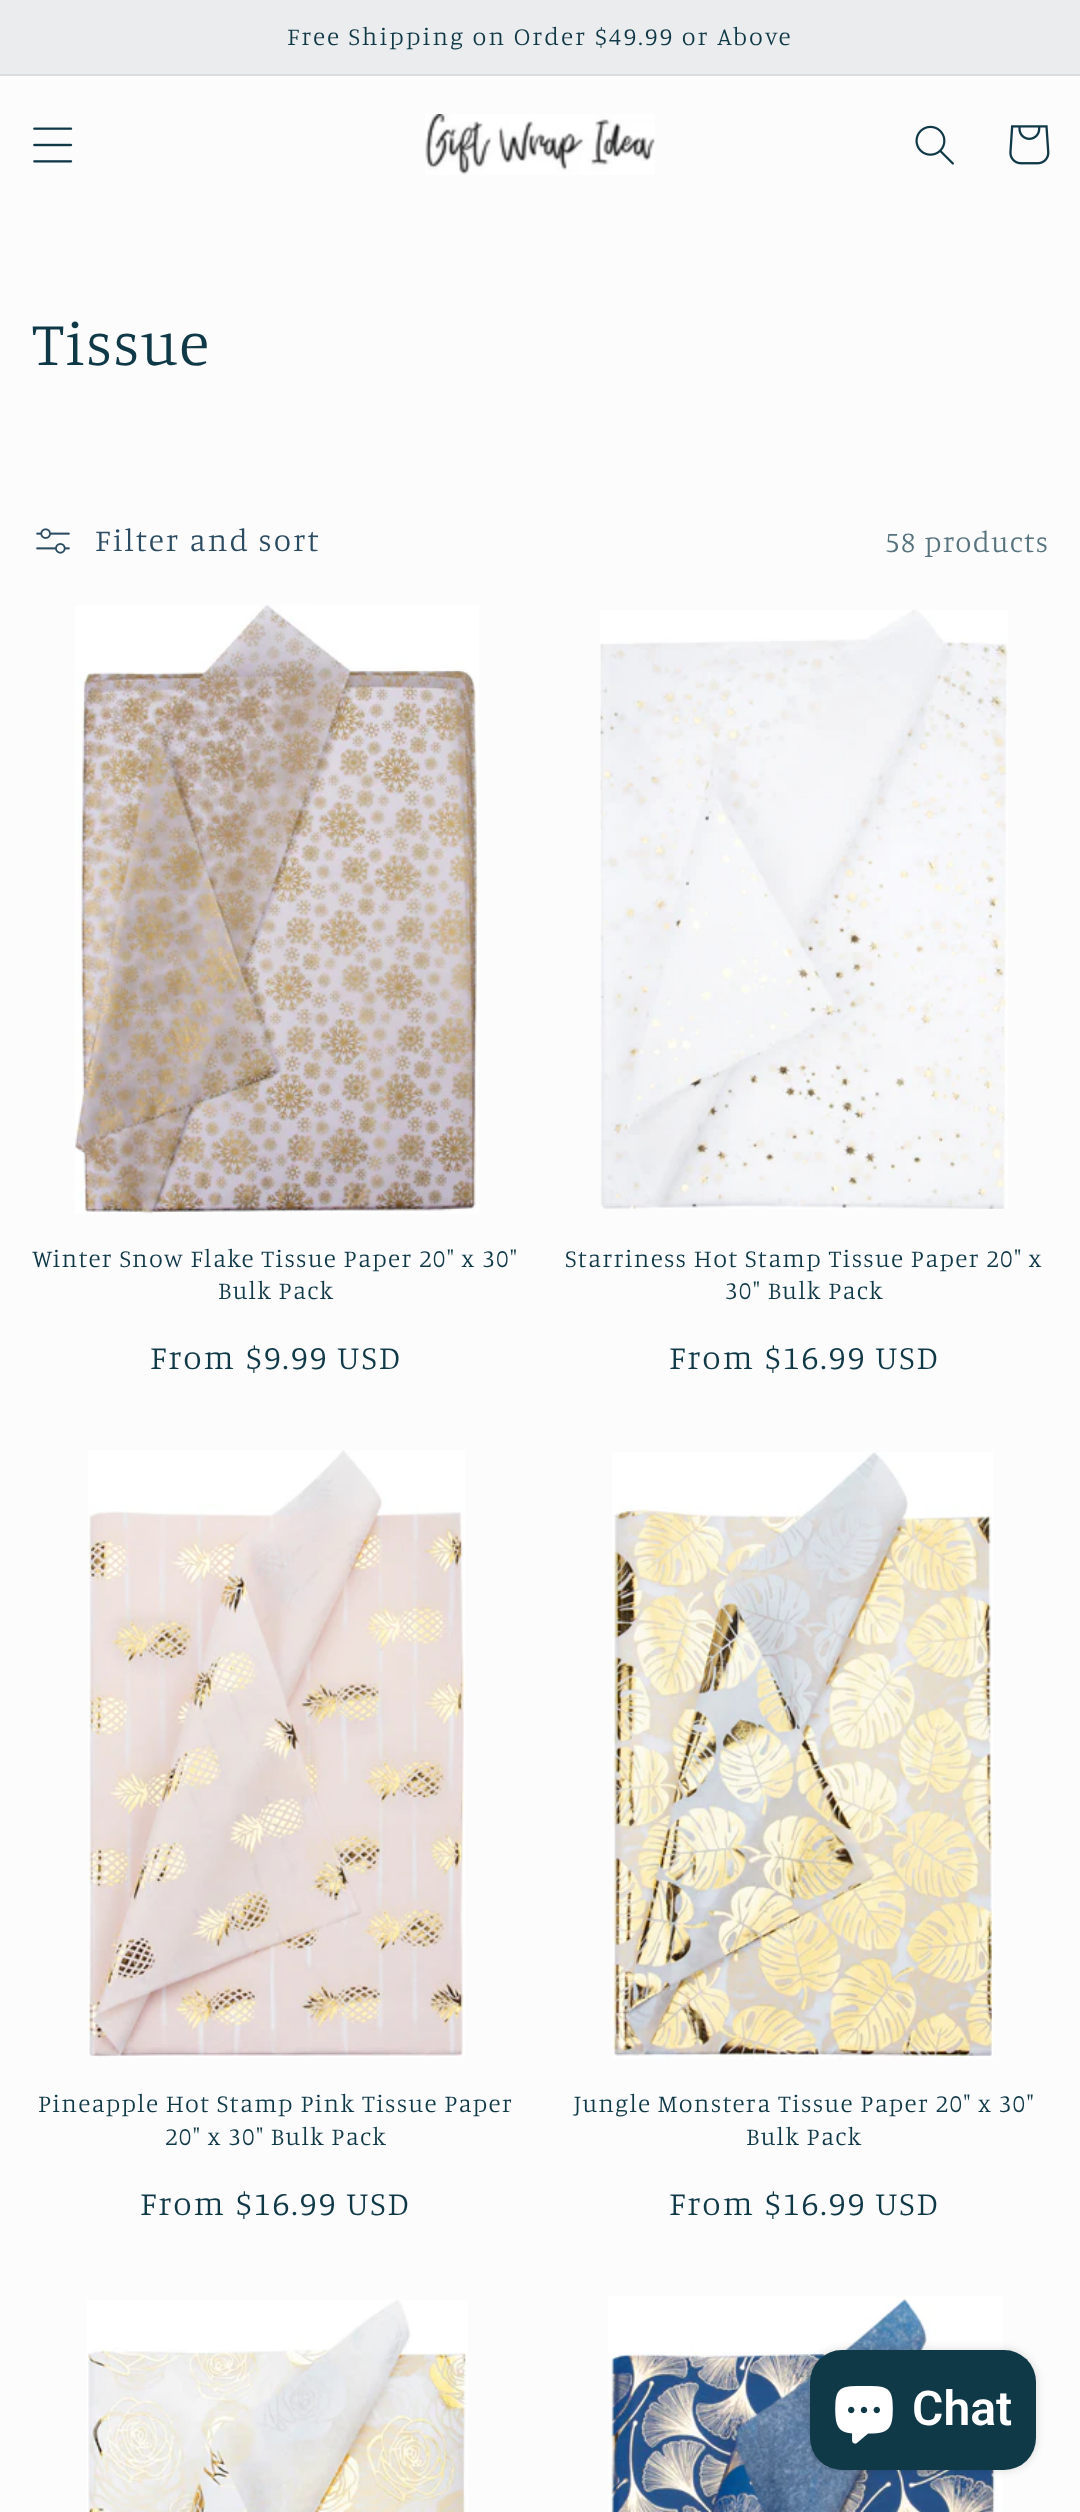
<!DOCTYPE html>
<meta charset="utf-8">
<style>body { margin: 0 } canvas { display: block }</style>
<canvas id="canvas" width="1080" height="2512"></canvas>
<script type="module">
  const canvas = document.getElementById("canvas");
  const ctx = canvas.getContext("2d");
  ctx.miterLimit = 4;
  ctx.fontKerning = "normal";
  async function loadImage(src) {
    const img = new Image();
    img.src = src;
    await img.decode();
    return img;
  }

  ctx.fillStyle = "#fcfcfc";
  ctx.fillRect(0, 0, 1080, 2512);
  ctx.fillStyle = "#ebeced";
  ctx.fillRect(0, 0, 1080, 74);
  ctx.fillStyle = "#d9dee0";
  ctx.fillRect(0, 74, 1080, 2);
  ctx.letterSpacing = "2.1px";
  ctx.font = "300 25.2px Manuale";
  ctx.fillStyle = "#103948";
  ctx.fillText("Free Shipping on Order $49.99 or Above", 287, 45);
  ctx.drawImage(await loadImage("img1.png"), 33, 127, 40, 36);
  ctx.drawImage(await loadImage("img2.png"), 425, 114, 230, 61);
  ctx.drawImage(await loadImage("img3.png"), 915, 125, 39, 40);
  ctx.drawImage(await loadImage("img4.png"), 1009, 125, 41, 40);
  ctx.letterSpacing = "1.25px";
  ctx.font = "300 63px Manuale";
  ctx.fillText("Tissue", 32, 365);
  ctx.drawImage(await loadImage("img5.png"), 36, 528, 34, 26);
  ctx.letterSpacing = "2.1px";
  ctx.font = "300 31.5px Manuale";
  ctx.fillStyle = "#2a4b61";
  ctx.fillText("Filter and sort", 95, 551);
  ctx.letterSpacing = "1.25px";
  ctx.font = "300 29.5px Manuale";
  ctx.fillStyle = "#57747e";
  ctx.fillText("58 products", 885, 552);
  ctx.drawImage(await loadImage("img6.png"), 75, 605, 404, 609);
  ctx.font = "300 25.2px Manuale";
  ctx.fillStyle = "#103948";
  ctx.fillText("Winter Snow Flake Tissue Paper 20\" x 30\"", 32, 1267);
  ctx.fillText("Bulk Pack", 218, 1299);
  ctx.letterSpacing = "2.1px";
  ctx.font = "300 33.5px Manuale";
  ctx.fillText("From $9.99 USD", 150, 1369);
  ctx.drawImage(await loadImage("img7.png"), 600, 610, 408, 599);
  ctx.letterSpacing = "1.25px";
  ctx.font = "300 25.2px Manuale";
  ctx.fillText("Starriness Hot Stamp Tissue Paper 20\" x", 565, 1267);
  ctx.fillText("30\" Bulk Pack", 725, 1299);
  ctx.letterSpacing = "2.1px";
  ctx.font = "300 33.5px Manuale";
  ctx.fillText("From $16.99 USD", 669, 1369);
  ctx.drawImage(await loadImage("img8.png"), 88, 1450, 377, 607);
  ctx.letterSpacing = "1.25px";
  ctx.font = "300 25.2px Manuale";
  ctx.fillText("Pineapple Hot Stamp Pink Tissue Paper", 38, 2112);
  ctx.fillText("20\" x 30\" Bulk Pack", 165, 2145);
  ctx.letterSpacing = "2.1px";
  ctx.font = "300 33.5px Manuale";
  ctx.fillText("From $16.99 USD", 140, 2215);
  ctx.drawImage(await loadImage("img9.png"), 612, 1452, 381, 607);
  ctx.letterSpacing = "1.25px";
  ctx.font = "300 25.2px Manuale";
  ctx.fillText("Jungle Monstera Tissue Paper 20\" x 30\"", 574, 2112);
  ctx.fillText("Bulk Pack", 746, 2145);
  ctx.letterSpacing = "2.1px";
  ctx.font = "300 33.5px Manuale";
  ctx.fillText("From $16.99 USD", 669, 2215);
  ctx.drawImage(await loadImage("img10.png"), 87, 2300, 381, 212);
  ctx.drawImage(await loadImage("img11.png"), 608, 2296, 395, 216);
  ctx.fillStyle = "rgba(0, 0, 0, 0.15)";
  ctx.filter = "blur(5px)";
  ctx.beginPath();
  ctx.roundRect(810, 2350, 226, 120, 32);
  ctx.fill();
  ctx.filter = "none";
  ctx.fillStyle = "#103948";
  ctx.beginPath();
  ctx.roundRect(810, 2350, 226, 120, 32);
  ctx.fill();
  ctx.drawImage(await loadImage("img12.png"), 835, 2386, 58, 58);
  ctx.letterSpacing = "0px";
  ctx.font = "600 48px Roboto";
  ctx.fillStyle = "#ffffff";
  ctx.fillText("Chat", 912, 2425);
</script>
